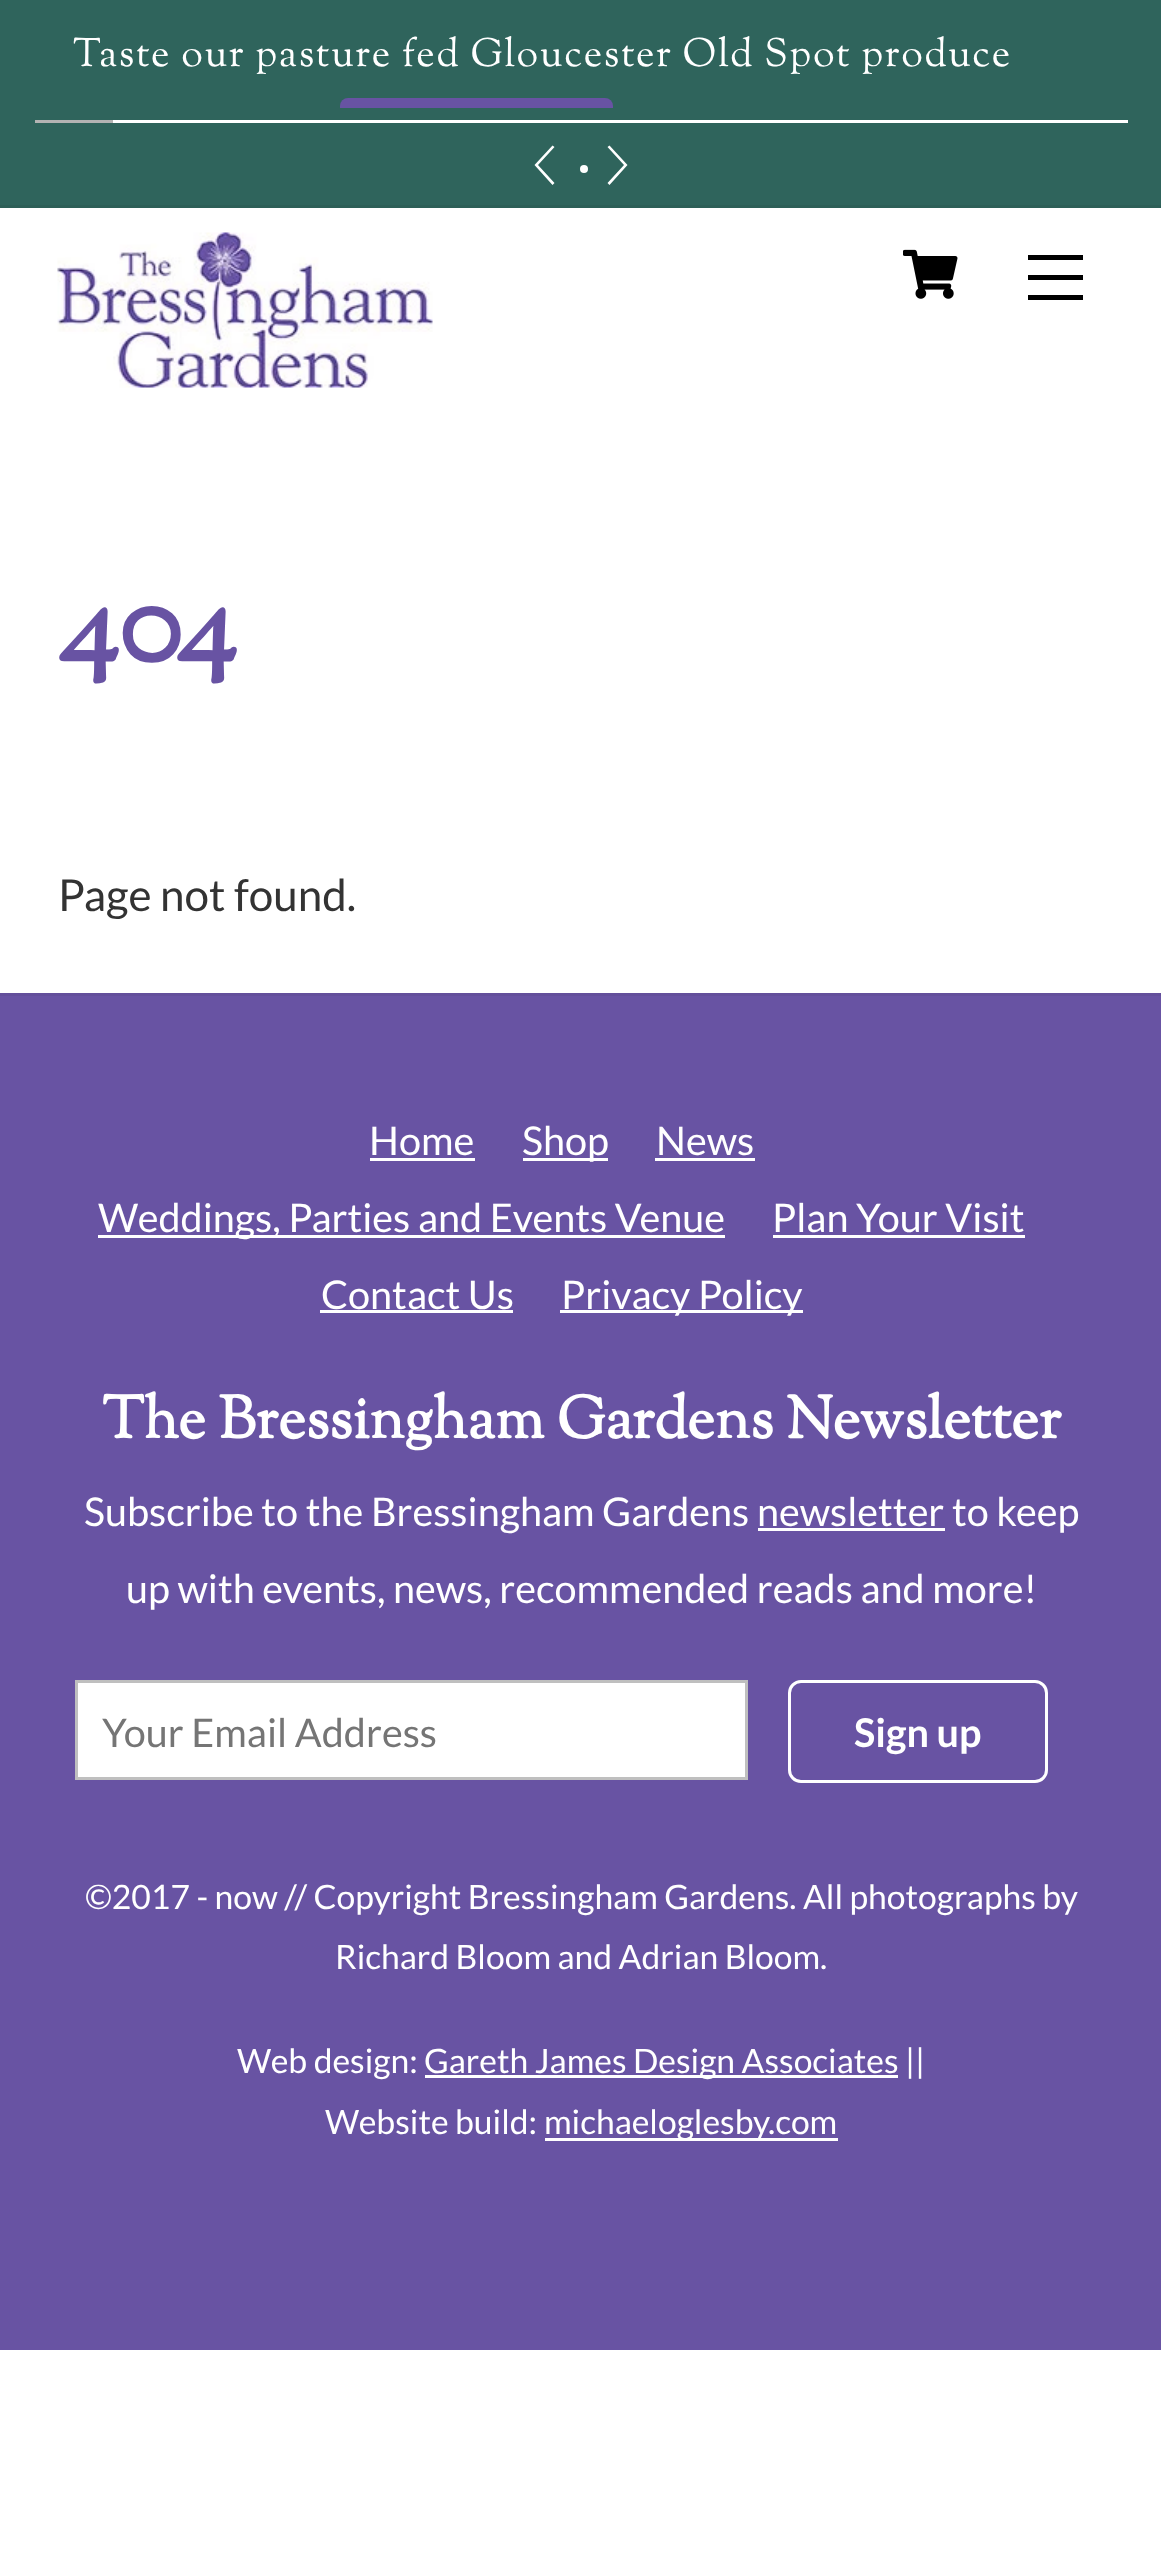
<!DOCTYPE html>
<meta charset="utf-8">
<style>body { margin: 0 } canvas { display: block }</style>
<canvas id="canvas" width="1161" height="2576"></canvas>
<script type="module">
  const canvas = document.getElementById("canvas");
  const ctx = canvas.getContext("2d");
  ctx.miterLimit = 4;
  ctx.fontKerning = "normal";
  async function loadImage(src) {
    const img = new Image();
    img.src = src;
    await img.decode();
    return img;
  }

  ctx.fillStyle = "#ffffff";
  ctx.fillRect(0, 0, 1161, 2576);
  ctx.fillStyle = "#2f645c";
  ctx.fillRect(0, 0, 1161, 205);
  ctx.fillStyle = "#2d5f57";
  ctx.fillRect(0, 205, 1161, 3);
  ctx.letterSpacing = "1.6px";
  ctx.font = "39.6px Sorts Mill Goudy";
  ctx.fillStyle = "#ffffff";
  ctx.fillText("Taste our pasture fed Gloucester Old Spot produce", 73, 66);
  ctx.fillStyle = "#6853a3";
  ctx.beginPath();
  ctx.roundRect(340, 98, 273, 10, [8, 8, 0, 0]);
  ctx.fill();
  ctx.fillStyle = "#ffffff";
  ctx.fillRect(113, 120, 1015, 3);
  ctx.fillStyle = "#b3b3b3";
  ctx.fillRect(35, 120, 78, 3);
  ctx.fillStyle = "#ffffff";
  ctx.beginPath();
  ctx.moveTo(552.5, 185);
  ctx.lineTo(534.5, 165);
  ctx.lineTo(552.5, 145.5);
  ctx.lineTo(554.5, 147);
  ctx.lineTo(538, 165);
  ctx.lineTo(554.5, 183);
  ctx.closePath();
  ctx.fill();
  ctx.beginPath();
  ctx.arc(584, 169, 4, 0, Math.PI * 2);
  ctx.fill();
  ctx.beginPath();
  ctx.moveTo(609.5, 185);
  ctx.lineTo(607.5, 183);
  ctx.lineTo(624, 165);
  ctx.lineTo(607.5, 147);
  ctx.lineTo(609.5, 145.5);
  ctx.lineTo(627.5, 165);
  ctx.closePath();
  ctx.fill();
  ctx.drawImage(await loadImage("img1.png"), 57, 232, 376, 156);
  ctx.drawImage(await loadImage("img2.png"), 903, 249, 55, 50);
  ctx.fillStyle = "#000000";
  ctx.fillRect(1028, 295, 55, 5);
  ctx.fillRect(1028, 255, 55, 5);
  ctx.fillRect(1028, 275, 55, 5);
  ctx.letterSpacing = "0px";
  ctx.font = "bold 121px Sorts Mill Goudy";
  ctx.fillStyle = "#6853a3";
  ctx.fillText("404", 58, 661);
  ctx.font = "44px Lato";
  ctx.fillStyle = "#333333";
  ctx.fillText("Page not found.", 58, 911);
  ctx.fillStyle = "#6853a3";
  ctx.fillRect(0, 996, 1161, 1354);
  ctx.fillStyle = "#634f9b";
  ctx.fillRect(0, 993, 1161, 3);
  ctx.font = "39.6px Lato";
  ctx.fillStyle = "#ffffff";
  ctx.fillText("Home", 369, 1155);
  ctx.fillRect(370, 1158, 105, 3);
  ctx.fillRect(523, 1158, 85, 3);
  ctx.fillText("Shop", 522, 1155);
  ctx.fillText("News", 656, 1155);
  ctx.fillRect(655, 1158, 100, 3);
  ctx.fillRect(98, 1235, 627, 3);
  ctx.fillText("Weddings, Parties and Events Venue", 98, 1232);
  ctx.fillText("Plan Your Visit", 772, 1232);
  ctx.fillRect(773, 1235, 252, 3);
  ctx.fillText("Contact Us", 321, 1309);
  ctx.fillRect(320, 1310, 193, 3);
  ctx.fillRect(560, 1310, 243, 3);
  ctx.fillText("Privacy Policy", 561, 1309);
  ctx.font = "bold 59.4px Sorts Mill Goudy";
  ctx.fillText("The Bressingham Gardens Newsletter", 102, 1438);
  ctx.font = "39.6px Lato";
  ctx.fillText("Subscribe to the Bressingham Gardens", 84, 1526);
  ctx.fillRect(758, 1528, 187, 3);
  ctx.fillText("newsletter to keep", 757, 1526);
  ctx.fillText("up with events, news, recommended reads and more!", 126, 1603);
  ctx.beginPath();
  ctx.rect(76.5, 1681.5, 670, 97);
  ctx.fill();
  ctx.strokeStyle = "#bfbfbf";
  ctx.lineWidth = 3;
  ctx.stroke();
  ctx.fillStyle = "#757575";
  ctx.fillText("Your Email Address", 102, 1747);
  ctx.beginPath();
  ctx.roundRect(789.5, 1681.5, 257, 100, 11.5);
  ctx.strokeStyle = "#ffffff";
  ctx.stroke();
  ctx.font = "bold 39.6px Lato";
  ctx.fillStyle = "#ffffff";
  ctx.fillText("Sign up", 854, 1747);
  ctx.font = "33.65px Lato";
  ctx.fillText("©2017 - now // Copyright Bressingham Gardens. All photographs by", 85, 1909);
  ctx.fillText("Richard Bloom and Adrian Bloom.", 335, 1969);
  ctx.fillText("Web design:", 237, 2073);
  ctx.fillRect(425, 2075, 473, 3);
  ctx.fillText("Gareth James Design Associates", 424, 2073);
  ctx.fillText("||", 905, 2073);
  ctx.fillText("Website build:", 325, 2134);
  ctx.fillRect(545, 2138, 293, 3);
  ctx.fillText("michaeloglesby.com", 544, 2134);
</script>
